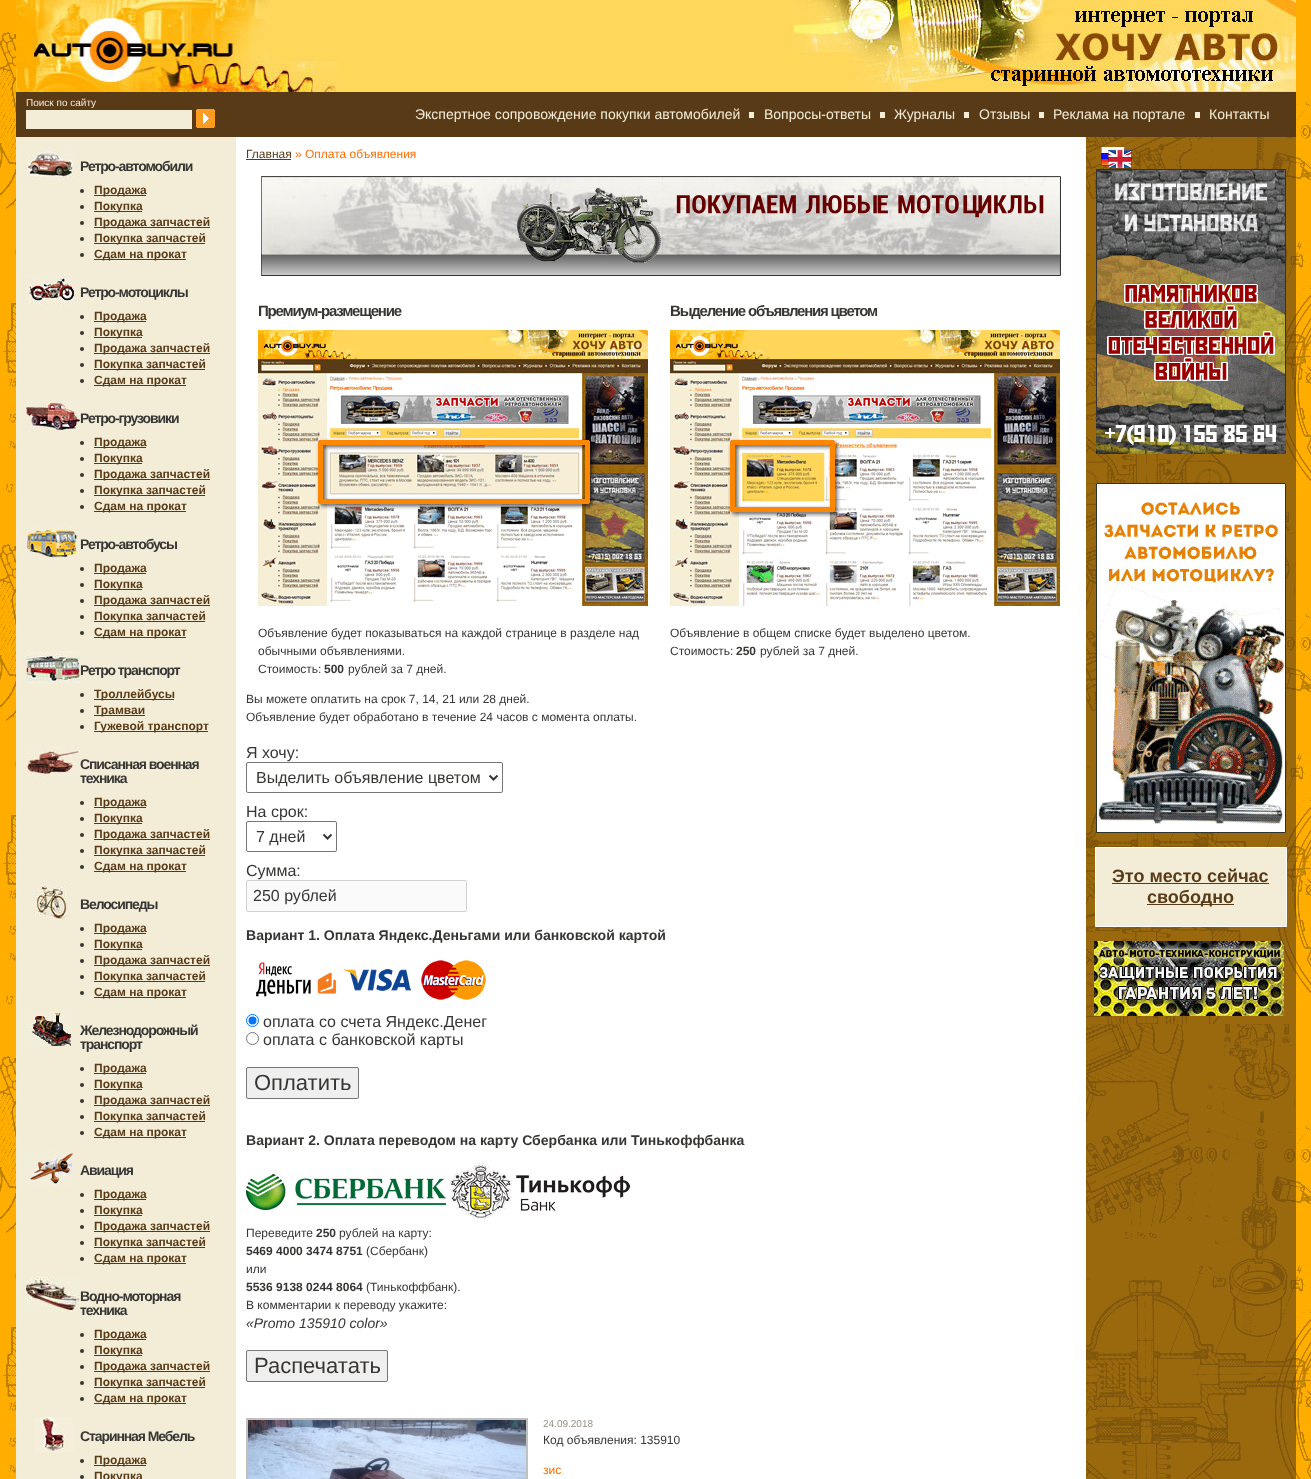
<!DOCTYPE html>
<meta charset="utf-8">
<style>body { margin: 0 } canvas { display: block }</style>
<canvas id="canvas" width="1311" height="1479"></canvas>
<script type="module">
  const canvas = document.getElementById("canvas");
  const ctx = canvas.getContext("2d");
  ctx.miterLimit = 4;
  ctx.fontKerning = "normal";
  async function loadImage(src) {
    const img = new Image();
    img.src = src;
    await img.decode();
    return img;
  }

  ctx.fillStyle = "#ffffff";
  ctx.fillRect(0, 0, 1311, 1479);
  ctx.drawImage(await loadImage("img1.png"), 0, 0, 1311, 1479);
  ctx.fillStyle = "#ffd75b";
  ctx.fillRect(340, 0, 449, 92);
  ctx.drawImage(await loadImage("img2.png"), 16, 0, 324, 92);
  ctx.drawImage(await loadImage("img3.png"), 789, 0, 507, 92);
  ctx.fillStyle = "#593a16";
  ctx.fillRect(16, 92, 1280, 45);
  ctx.font = "10px Liberation Sans";
  ctx.fillStyle = "#f3edd8";
  ctx.fillText("Поиск по сайту", 26, 106);
  ctx.fillRect(26, 110, 166, 19);
  ctx.drawImage(await loadImage("img4.png"), 196, 109, 19, 19);
  ctx.font = "14px Liberation Sans";
  ctx.fillText("Экспертное сопровождение покупки автомобилей", 415, 119);
  ctx.fillRect(749, 112, 5, 6);
  ctx.fillText("Вопросы-ответы", 764, 119);
  ctx.fillRect(880, 112, 5, 6);
  ctx.fillText("Журналы", 894, 119);
  ctx.fillRect(964, 112, 5, 6);
  ctx.fillText("Отзывы", 979, 119);
  ctx.fillRect(1039, 112, 5, 6);
  ctx.fillText("Реклама на портале", 1053, 119);
  ctx.fillRect(1195, 112, 5, 6);
  ctx.fillText("Контакты", 1209, 119);
  ctx.fillRect(16, 137, 220, 1342);
  ctx.drawImage(await loadImage("img5.png"), 26, 147, 48, 32);
  ctx.letterSpacing = "-1.1px";
  ctx.font = "bold 14px Liberation Sans";
  ctx.fillStyle = "#373634";
  ctx.fillText("Ретро-автомобили", 80, 171);
  ctx.beginPath();
  ctx.arc(82, 191, 2, 0, Math.PI * 2);
  ctx.fill();
  ctx.fillStyle = "#593a16";
  ctx.fillRect(94, 195, 52, 1);
  ctx.letterSpacing = "0px";
  ctx.font = "bold 12px Liberation Sans";
  ctx.fillText("Продажа", 94, 194);
  ctx.fillStyle = "#373634";
  ctx.beginPath();
  ctx.arc(82, 207, 2, 0, Math.PI * 2);
  ctx.fill();
  ctx.fillStyle = "#593a16";
  ctx.fillRect(94, 211, 48, 1);
  ctx.fillText("Покупка", 94, 210);
  ctx.fillStyle = "#373634";
  ctx.beginPath();
  ctx.arc(82, 223, 2, 0, Math.PI * 2);
  ctx.fill();
  ctx.fillStyle = "#593a16";
  ctx.fillRect(94, 227, 116, 1);
  ctx.fillText("Продажа запчастей", 94, 226);
  ctx.fillStyle = "#373634";
  ctx.beginPath();
  ctx.arc(82, 239, 2, 0, Math.PI * 2);
  ctx.fill();
  ctx.fillStyle = "#593a16";
  ctx.fillRect(94, 243, 111, 1);
  ctx.fillText("Покупка запчастей", 94, 242);
  ctx.fillStyle = "#373634";
  ctx.beginPath();
  ctx.arc(82, 255, 2, 0, Math.PI * 2);
  ctx.fill();
  ctx.fillStyle = "#593a16";
  ctx.fillRect(94, 259, 92, 1);
  ctx.fillText("Сдам на прокат", 94, 258);
  ctx.drawImage(await loadImage("img6.png"), 26, 273, 48, 32);
  ctx.letterSpacing = "-1.1px";
  ctx.font = "bold 14px Liberation Sans";
  ctx.fillStyle = "#373634";
  ctx.fillText("Ретро-мотоциклы", 80, 297);
  ctx.beginPath();
  ctx.arc(82, 317, 2, 0, Math.PI * 2);
  ctx.fill();
  ctx.fillStyle = "#593a16";
  ctx.fillRect(94, 321, 52, 1);
  ctx.letterSpacing = "0px";
  ctx.font = "bold 12px Liberation Sans";
  ctx.fillText("Продажа", 94, 320);
  ctx.fillStyle = "#373634";
  ctx.beginPath();
  ctx.arc(82, 333, 2, 0, Math.PI * 2);
  ctx.fill();
  ctx.fillStyle = "#593a16";
  ctx.fillRect(94, 337, 48, 1);
  ctx.fillText("Покупка", 94, 336);
  ctx.fillStyle = "#373634";
  ctx.beginPath();
  ctx.arc(82, 349, 2, 0, Math.PI * 2);
  ctx.fill();
  ctx.fillStyle = "#593a16";
  ctx.fillRect(94, 353, 116, 1);
  ctx.fillText("Продажа запчастей", 94, 352);
  ctx.fillStyle = "#373634";
  ctx.beginPath();
  ctx.arc(82, 365, 2, 0, Math.PI * 2);
  ctx.fill();
  ctx.fillStyle = "#593a16";
  ctx.fillRect(94, 369, 111, 1);
  ctx.fillText("Покупка запчастей", 94, 368);
  ctx.fillStyle = "#373634";
  ctx.beginPath();
  ctx.arc(82, 381, 2, 0, Math.PI * 2);
  ctx.fill();
  ctx.fillStyle = "#593a16";
  ctx.fillRect(94, 385, 92, 1);
  ctx.fillText("Сдам на прокат", 94, 384);
  ctx.drawImage(await loadImage("img7.png"), 26, 399, 54, 32);
  ctx.letterSpacing = "-1.1px";
  ctx.font = "bold 14px Liberation Sans";
  ctx.fillStyle = "#373634";
  ctx.fillText("Ретро-грузовики", 80, 423);
  ctx.beginPath();
  ctx.arc(82, 443, 2, 0, Math.PI * 2);
  ctx.fill();
  ctx.fillStyle = "#593a16";
  ctx.fillRect(94, 447, 52, 1);
  ctx.letterSpacing = "0px";
  ctx.font = "bold 12px Liberation Sans";
  ctx.fillText("Продажа", 94, 446);
  ctx.fillStyle = "#373634";
  ctx.beginPath();
  ctx.arc(82, 459, 2, 0, Math.PI * 2);
  ctx.fill();
  ctx.fillStyle = "#593a16";
  ctx.fillRect(94, 463, 48, 1);
  ctx.fillText("Покупка", 94, 462);
  ctx.fillStyle = "#373634";
  ctx.beginPath();
  ctx.arc(82, 475, 2, 0, Math.PI * 2);
  ctx.fill();
  ctx.fillStyle = "#593a16";
  ctx.fillRect(94, 479, 116, 1);
  ctx.fillText("Продажа запчастей", 94, 478);
  ctx.fillStyle = "#373634";
  ctx.beginPath();
  ctx.arc(82, 491, 2, 0, Math.PI * 2);
  ctx.fill();
  ctx.fillStyle = "#593a16";
  ctx.fillRect(94, 495, 111, 1);
  ctx.fillText("Покупка запчастей", 94, 494);
  ctx.fillStyle = "#373634";
  ctx.beginPath();
  ctx.arc(82, 507, 2, 0, Math.PI * 2);
  ctx.fill();
  ctx.fillStyle = "#593a16";
  ctx.fillRect(94, 511, 92, 1);
  ctx.fillText("Сдам на прокат", 94, 510);
  ctx.drawImage(await loadImage("img8.png"), 26, 525, 54, 33);
  ctx.letterSpacing = "-1.1px";
  ctx.font = "bold 14px Liberation Sans";
  ctx.fillStyle = "#373634";
  ctx.fillText("Ретро-автобусы", 80, 549);
  ctx.beginPath();
  ctx.arc(82, 569, 2, 0, Math.PI * 2);
  ctx.fill();
  ctx.fillStyle = "#593a16";
  ctx.fillRect(94, 573, 52, 1);
  ctx.letterSpacing = "0px";
  ctx.font = "bold 12px Liberation Sans";
  ctx.fillText("Продажа", 94, 572);
  ctx.fillStyle = "#373634";
  ctx.beginPath();
  ctx.arc(82, 585, 2, 0, Math.PI * 2);
  ctx.fill();
  ctx.fillStyle = "#593a16";
  ctx.fillRect(94, 589, 48, 1);
  ctx.fillText("Покупка", 94, 588);
  ctx.fillStyle = "#373634";
  ctx.beginPath();
  ctx.arc(82, 601, 2, 0, Math.PI * 2);
  ctx.fill();
  ctx.fillStyle = "#593a16";
  ctx.fillRect(94, 605, 116, 1);
  ctx.fillText("Продажа запчастей", 94, 604);
  ctx.fillStyle = "#373634";
  ctx.beginPath();
  ctx.arc(82, 617, 2, 0, Math.PI * 2);
  ctx.fill();
  ctx.fillStyle = "#593a16";
  ctx.fillRect(94, 621, 111, 1);
  ctx.fillText("Покупка запчастей", 94, 620);
  ctx.fillStyle = "#373634";
  ctx.beginPath();
  ctx.arc(82, 633, 2, 0, Math.PI * 2);
  ctx.fill();
  ctx.fillStyle = "#593a16";
  ctx.fillRect(94, 637, 92, 1);
  ctx.fillText("Сдам на прокат", 94, 636);
  ctx.drawImage(await loadImage("img9.png"), 26, 651, 54, 33);
  ctx.letterSpacing = "-1.1px";
  ctx.font = "bold 14px Liberation Sans";
  ctx.fillStyle = "#373634";
  ctx.fillText("Ретро транспорт", 80, 675);
  ctx.beginPath();
  ctx.arc(82, 695, 2, 0, Math.PI * 2);
  ctx.fill();
  ctx.fillStyle = "#593a16";
  ctx.fillRect(94, 699, 80, 1);
  ctx.letterSpacing = "0px";
  ctx.font = "bold 12px Liberation Sans";
  ctx.fillText("Троллейбусы", 94, 698);
  ctx.fillStyle = "#373634";
  ctx.beginPath();
  ctx.arc(82, 711, 2, 0, Math.PI * 2);
  ctx.fill();
  ctx.fillStyle = "#593a16";
  ctx.fillRect(94, 715, 51, 1);
  ctx.fillText("Трамваи", 94, 714);
  ctx.fillStyle = "#373634";
  ctx.beginPath();
  ctx.arc(82, 727, 2, 0, Math.PI * 2);
  ctx.fill();
  ctx.fillStyle = "#593a16";
  ctx.fillRect(94, 731, 114, 1);
  ctx.fillText("Гужевой транспорт", 94, 730);
  ctx.drawImage(await loadImage("img10.png"), 26, 745, 54, 32);
  ctx.letterSpacing = "-1.1px";
  ctx.font = "bold 14px Liberation Sans";
  ctx.fillStyle = "#373634";
  ctx.fillText("Списанная военная", 80, 769);
  ctx.fillText("техника", 80, 783);
  ctx.beginPath();
  ctx.arc(82, 803, 2, 0, Math.PI * 2);
  ctx.fill();
  ctx.fillStyle = "#593a16";
  ctx.fillRect(94, 807, 52, 1);
  ctx.letterSpacing = "0px";
  ctx.font = "bold 12px Liberation Sans";
  ctx.fillText("Продажа", 94, 806);
  ctx.fillStyle = "#373634";
  ctx.beginPath();
  ctx.arc(82, 819, 2, 0, Math.PI * 2);
  ctx.fill();
  ctx.fillStyle = "#593a16";
  ctx.fillRect(94, 823, 48, 1);
  ctx.fillText("Покупка", 94, 822);
  ctx.fillStyle = "#373634";
  ctx.beginPath();
  ctx.arc(82, 835, 2, 0, Math.PI * 2);
  ctx.fill();
  ctx.fillStyle = "#593a16";
  ctx.fillRect(94, 839, 116, 1);
  ctx.fillText("Продажа запчастей", 94, 838);
  ctx.fillStyle = "#373634";
  ctx.beginPath();
  ctx.arc(82, 851, 2, 0, Math.PI * 2);
  ctx.fill();
  ctx.fillStyle = "#593a16";
  ctx.fillRect(94, 855, 111, 1);
  ctx.fillText("Покупка запчастей", 94, 854);
  ctx.fillStyle = "#373634";
  ctx.beginPath();
  ctx.arc(82, 867, 2, 0, Math.PI * 2);
  ctx.fill();
  ctx.fillStyle = "#593a16";
  ctx.fillRect(94, 871, 92, 1);
  ctx.fillText("Сдам на прокат", 94, 870);
  ctx.drawImage(await loadImage("img11.png"), 34, 885, 37, 35);
  ctx.letterSpacing = "-1.1px";
  ctx.font = "bold 14px Liberation Sans";
  ctx.fillStyle = "#373634";
  ctx.fillText("Велосипеды", 80, 909);
  ctx.beginPath();
  ctx.arc(82, 929, 2, 0, Math.PI * 2);
  ctx.fill();
  ctx.fillStyle = "#593a16";
  ctx.fillRect(94, 933, 52, 1);
  ctx.letterSpacing = "0px";
  ctx.font = "bold 12px Liberation Sans";
  ctx.fillText("Продажа", 94, 932);
  ctx.fillStyle = "#373634";
  ctx.beginPath();
  ctx.arc(82, 945, 2, 0, Math.PI * 2);
  ctx.fill();
  ctx.fillStyle = "#593a16";
  ctx.fillRect(94, 949, 48, 1);
  ctx.fillText("Покупка", 94, 948);
  ctx.fillStyle = "#373634";
  ctx.beginPath();
  ctx.arc(82, 961, 2, 0, Math.PI * 2);
  ctx.fill();
  ctx.fillStyle = "#593a16";
  ctx.fillRect(94, 965, 116, 1);
  ctx.fillText("Продажа запчастей", 94, 964);
  ctx.fillStyle = "#373634";
  ctx.beginPath();
  ctx.arc(82, 977, 2, 0, Math.PI * 2);
  ctx.fill();
  ctx.fillStyle = "#593a16";
  ctx.fillRect(94, 981, 111, 1);
  ctx.fillText("Покупка запчастей", 94, 980);
  ctx.fillStyle = "#373634";
  ctx.beginPath();
  ctx.arc(82, 993, 2, 0, Math.PI * 2);
  ctx.fill();
  ctx.fillStyle = "#593a16";
  ctx.fillRect(94, 997, 92, 1);
  ctx.fillText("Сдам на прокат", 94, 996);
  ctx.drawImage(await loadImage("img12.png"), 26, 1011, 48, 35);
  ctx.letterSpacing = "-1.1px";
  ctx.font = "bold 14px Liberation Sans";
  ctx.fillStyle = "#373634";
  ctx.fillText("Железнодорожный", 80, 1035);
  ctx.fillText("транспорт", 80, 1049);
  ctx.beginPath();
  ctx.arc(82, 1069, 2, 0, Math.PI * 2);
  ctx.fill();
  ctx.fillStyle = "#593a16";
  ctx.fillRect(94, 1073, 52, 1);
  ctx.letterSpacing = "0px";
  ctx.font = "bold 12px Liberation Sans";
  ctx.fillText("Продажа", 94, 1072);
  ctx.fillStyle = "#373634";
  ctx.beginPath();
  ctx.arc(82, 1085, 2, 0, Math.PI * 2);
  ctx.fill();
  ctx.fillStyle = "#593a16";
  ctx.fillRect(94, 1089, 48, 1);
  ctx.fillText("Покупка", 94, 1088);
  ctx.fillStyle = "#373634";
  ctx.beginPath();
  ctx.arc(82, 1101, 2, 0, Math.PI * 2);
  ctx.fill();
  ctx.fillStyle = "#593a16";
  ctx.fillRect(94, 1105, 116, 1);
  ctx.fillText("Продажа запчастей", 94, 1104);
  ctx.fillStyle = "#373634";
  ctx.beginPath();
  ctx.arc(82, 1117, 2, 0, Math.PI * 2);
  ctx.fill();
  ctx.fillStyle = "#593a16";
  ctx.fillRect(94, 1121, 111, 1);
  ctx.fillText("Покупка запчастей", 94, 1120);
  ctx.fillStyle = "#373634";
  ctx.beginPath();
  ctx.arc(82, 1133, 2, 0, Math.PI * 2);
  ctx.fill();
  ctx.fillStyle = "#593a16";
  ctx.fillRect(94, 1137, 92, 1);
  ctx.fillText("Сдам на прокат", 94, 1136);
  ctx.drawImage(await loadImage("img13.png"), 26, 1151, 48, 35);
  ctx.letterSpacing = "-1.1px";
  ctx.font = "bold 14px Liberation Sans";
  ctx.fillStyle = "#373634";
  ctx.fillText("Авиация", 80, 1175);
  ctx.beginPath();
  ctx.arc(82, 1195, 2, 0, Math.PI * 2);
  ctx.fill();
  ctx.fillStyle = "#593a16";
  ctx.fillRect(94, 1199, 52, 1);
  ctx.letterSpacing = "0px";
  ctx.font = "bold 12px Liberation Sans";
  ctx.fillText("Продажа", 94, 1198);
  ctx.fillStyle = "#373634";
  ctx.beginPath();
  ctx.arc(82, 1211, 2, 0, Math.PI * 2);
  ctx.fill();
  ctx.fillStyle = "#593a16";
  ctx.fillRect(94, 1215, 48, 1);
  ctx.fillText("Покупка", 94, 1214);
  ctx.fillStyle = "#373634";
  ctx.beginPath();
  ctx.arc(82, 1227, 2, 0, Math.PI * 2);
  ctx.fill();
  ctx.fillStyle = "#593a16";
  ctx.fillRect(94, 1231, 116, 1);
  ctx.fillText("Продажа запчастей", 94, 1230);
  ctx.fillStyle = "#373634";
  ctx.beginPath();
  ctx.arc(82, 1243, 2, 0, Math.PI * 2);
  ctx.fill();
  ctx.fillStyle = "#593a16";
  ctx.fillRect(94, 1247, 111, 1);
  ctx.fillText("Покупка запчастей", 94, 1246);
  ctx.fillStyle = "#373634";
  ctx.beginPath();
  ctx.arc(82, 1259, 2, 0, Math.PI * 2);
  ctx.fill();
  ctx.fillStyle = "#593a16";
  ctx.fillRect(94, 1263, 92, 1);
  ctx.fillText("Сдам на прокат", 94, 1262);
  ctx.drawImage(await loadImage("img14.png"), 26, 1277, 54, 35);
  ctx.letterSpacing = "-1.1px";
  ctx.font = "bold 14px Liberation Sans";
  ctx.fillStyle = "#373634";
  ctx.fillText("Водно-моторная", 80, 1301);
  ctx.fillText("техника", 80, 1315);
  ctx.beginPath();
  ctx.arc(82, 1335, 2, 0, Math.PI * 2);
  ctx.fill();
  ctx.fillStyle = "#593a16";
  ctx.fillRect(94, 1339, 52, 1);
  ctx.letterSpacing = "0px";
  ctx.font = "bold 12px Liberation Sans";
  ctx.fillText("Продажа", 94, 1338);
  ctx.fillStyle = "#373634";
  ctx.beginPath();
  ctx.arc(82, 1351, 2, 0, Math.PI * 2);
  ctx.fill();
  ctx.fillStyle = "#593a16";
  ctx.fillRect(94, 1355, 48, 1);
  ctx.fillText("Покупка", 94, 1354);
  ctx.fillStyle = "#373634";
  ctx.beginPath();
  ctx.arc(82, 1367, 2, 0, Math.PI * 2);
  ctx.fill();
  ctx.fillStyle = "#593a16";
  ctx.fillRect(94, 1371, 116, 1);
  ctx.fillText("Продажа запчастей", 94, 1370);
  ctx.fillStyle = "#373634";
  ctx.beginPath();
  ctx.arc(82, 1383, 2, 0, Math.PI * 2);
  ctx.fill();
  ctx.fillStyle = "#593a16";
  ctx.fillRect(94, 1387, 111, 1);
  ctx.fillText("Покупка запчастей", 94, 1386);
  ctx.fillStyle = "#373634";
  ctx.beginPath();
  ctx.arc(82, 1399, 2, 0, Math.PI * 2);
  ctx.fill();
  ctx.fillStyle = "#593a16";
  ctx.fillRect(94, 1403, 92, 1);
  ctx.fillText("Сдам на прокат", 94, 1402);
  ctx.drawImage(await loadImage("img15.png"), 34, 1417, 40, 35);
  ctx.letterSpacing = "-1.1px";
  ctx.font = "bold 14px Liberation Sans";
  ctx.fillStyle = "#373634";
  ctx.fillText("Старинная Мебель", 80, 1441);
  ctx.beginPath();
  ctx.arc(82, 1461, 2, 0, Math.PI * 2);
  ctx.fill();
  ctx.fillStyle = "#593a16";
  ctx.fillRect(94, 1465, 52, 1);
  ctx.letterSpacing = "0px";
  ctx.font = "bold 12px Liberation Sans";
  ctx.fillText("Продажа", 94, 1464);
  ctx.fillStyle = "#373634";
  ctx.beginPath();
  ctx.arc(82, 1477, 2, 0, Math.PI * 2);
  ctx.fill();
  ctx.fillStyle = "#593a16";
  ctx.fillText("Покупка", 94, 1480);
  ctx.fillStyle = "#ffffff";
  ctx.fillRect(236, 137, 850, 1342);
  ctx.font = "12px Liberation Sans";
  ctx.fillStyle = "#593a16";
  ctx.fillText("Главная", 246, 158);
  ctx.fillRect(246, 159, 45, 1);
  ctx.fillStyle = "#fd6d04";
  ctx.fillText("» Оплата объявления", 295, 158);
  ctx.drawImage(await loadImage("img16.png"), 261, 176, 800, 100);
  ctx.letterSpacing = "-1.2px";
  ctx.font = "bold 15px Liberation Sans";
  ctx.fillStyle = "#373634";
  ctx.fillText("Премиум-размещение", 258, 316);
  ctx.drawImage(await loadImage("img17.png"), 258, 330, 390, 276);
  ctx.letterSpacing = "0px";
  ctx.font = "12px Liberation Sans";
  ctx.fillText("Объявление будет показываться на каждой странице в разделе над", 258, 637);
  ctx.fillText("обычными объявлениями.", 258, 655);
  ctx.fillText("Стоимость:", 258, 673);
  ctx.font = "bold 12px Liberation Sans";
  ctx.fillText("500", 324, 673);
  ctx.font = "12px Liberation Sans";
  ctx.fillText("рублей за 7 дней.", 348, 673);
  ctx.letterSpacing = "-1.2px";
  ctx.font = "bold 15px Liberation Sans";
  ctx.fillText("Выделение объявления цветом", 670, 316);
  ctx.drawImage(await loadImage("img18.png"), 670, 330, 390, 276);
  ctx.letterSpacing = "0px";
  ctx.font = "12px Liberation Sans";
  ctx.fillText("Объявление в общем списке будет выделено цветом.", 670, 637);
  ctx.fillText("Стоимость:", 670, 655);
  ctx.font = "bold 12px Liberation Sans";
  ctx.fillText("250", 736, 655);
  ctx.font = "12px Liberation Sans";
  ctx.fillText("рублей за 7 дней.", 760, 655);
  ctx.fillText("Вы можете оплатить на срок 7, 14, 21 или 28 дней.", 246, 703);
  ctx.fillText("Объявление будет обработано в течение 24 часов с момента оплаты.", 246, 721);
  ctx.font = "16px Liberation Sans";
  ctx.fillText("Я хочу:", 246, 758);
  ctx.beginPath();
  ctx.roundRect(246.5, 762.5, 256, 30, 1.5);
  ctx.strokeStyle = "#767676";
  ctx.stroke();
  ctx.beginPath();
  ctx.moveTo(489.5, 775.5);
  ctx.lineTo(493.5, 779.5);
  ctx.lineTo(497.5, 775.5);
  ctx.strokeStyle = "#373634";
  ctx.lineWidth = 2;
  ctx.stroke();
  ctx.fillText("Выделить объявление цветом", 256, 783);
  ctx.fillText("На срок:", 246, 817);
  ctx.beginPath();
  ctx.roundRect(246.5, 821.5, 90, 30, 1.5);
  ctx.strokeStyle = "#767676";
  ctx.lineWidth = 1;
  ctx.stroke();
  ctx.beginPath();
  ctx.moveTo(323.5, 834.5);
  ctx.lineTo(327.5, 838.5);
  ctx.lineTo(331.5, 834.5);
  ctx.strokeStyle = "#373634";
  ctx.lineWidth = 2;
  ctx.stroke();
  ctx.fillText("7 дней", 256, 842);
  ctx.fillText("Сумма:", 246, 876);
  ctx.fillStyle = "#fafafa";
  ctx.beginPath();
  ctx.roundRect(246.5, 880.5, 220, 31, 1.5);
  ctx.fill();
  ctx.strokeStyle = "#d2d2d2";
  ctx.lineWidth = 1;
  ctx.stroke();
  ctx.fillStyle = "#373634";
  ctx.fillText("250 рублей", 253, 901);
  ctx.font = "bold 14.05px Liberation Sans";
  ctx.fillText("Вариант 1. Оплата Яндекс.Деньгами или банковской картой", 246, 940);
  ctx.drawImage(await loadImage("img19.png"), 256, 960, 230, 40);
  ctx.beginPath();
  ctx.arc(252.5, 1020.5, 6, 0, Math.PI * 2);
  ctx.strokeStyle = "#0075ff";
  ctx.stroke();
  ctx.fillStyle = "#0075ff";
  ctx.beginPath();
  ctx.arc(252.5, 1020.5, 4, 0, Math.PI * 2);
  ctx.fill();
  ctx.font = "16px Liberation Sans";
  ctx.fillStyle = "#373634";
  ctx.fillText("оплата со счета Яндекс.Денег", 263, 1027);
  ctx.beginPath();
  ctx.arc(252.5, 1038.5, 6, 0, Math.PI * 2);
  ctx.strokeStyle = "#767676";
  ctx.stroke();
  ctx.fillText("оплата с банковской карты", 263, 1045);
  ctx.fillStyle = "#efefef";
  ctx.beginPath();
  ctx.roundRect(246.5, 1067.5, 112, 31, 1.5);
  ctx.fill();
  ctx.stroke();
  ctx.font = "22px Liberation Sans";
  ctx.fillStyle = "#373634";
  ctx.fillText("Оплатить", 254, 1090);
  ctx.font = "bold 14.05px Liberation Sans";
  ctx.fillText("Вариант 2. Оплата переводом на карту Сбербанка или Тинькоффбанка", 246, 1145);
  ctx.drawImage(await loadImage("img20.png"), 246, 1174, 200, 36);
  ctx.drawImage(await loadImage("img21.png"), 449, 1163, 181, 56);
  ctx.font = "12px Liberation Sans";
  ctx.fillText("Переведите", 246, 1237);
  ctx.font = "bold 12px Liberation Sans";
  ctx.fillText("250", 316, 1237);
  ctx.font = "12px Liberation Sans";
  ctx.fillText("рублей на карту:", 339, 1237);
  ctx.font = "bold 12px Liberation Sans";
  ctx.fillText("5469 4000 3474 8751", 246, 1255);
  ctx.font = "12px Liberation Sans";
  ctx.fillText("(Сбербанк)", 366, 1255);
  ctx.fillText("или", 246, 1273);
  ctx.font = "bold 12px Liberation Sans";
  ctx.fillText("5536 9138 0244 8064", 246, 1291);
  ctx.font = "12px Liberation Sans";
  ctx.fillText("(Тинькоффбанк).", 366, 1291);
  ctx.fillText("В комментарии к переводу укажите:", 246, 1309);
  ctx.font = "italic 14px Liberation Sans";
  ctx.fillText("«Promo 135910 color»", 246, 1328);
  ctx.fillStyle = "#efefef";
  ctx.beginPath();
  ctx.roundRect(246.5, 1350.5, 141, 31, 1.5);
  ctx.fill();
  ctx.stroke();
  ctx.font = "22px Liberation Sans";
  ctx.fillStyle = "#373634";
  ctx.fillText("Распечатать", 254, 1373);
  ctx.strokeStyle = "#c0c0c0";
  ctx.lineWidth = 2;
  ctx.strokeRect(247, 1419, 280, 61);
  ctx.drawImage(await loadImage("img22.png"), 248, 1420, 278, 59);
  ctx.font = "10px Liberation Sans";
  ctx.fillStyle = "#968f87";
  ctx.fillText("24.09.2018", 543, 1427);
  ctx.font = "12px Liberation Sans";
  ctx.fillStyle = "#373634";
  ctx.fillText("Код объявления: 135910", 543, 1444);
  ctx.fillStyle = "#fd6d04";
  ctx.fillText("зис", 543, 1474);
  ctx.fillStyle = "rgba(89, 58, 22, 0.6)";
  ctx.fillRect(1086, 137, 210, 1342);
  ctx.drawImage(await loadImage("img23.png"), 1101, 147, 31, 22);
  ctx.drawImage(await loadImage("img24.png"), 1096, 169, 190, 285);
  ctx.drawImage(await loadImage("img25.png"), 1096, 483, 190, 350);
  ctx.fillStyle = "#f3edd8";
  ctx.beginPath();
  ctx.rect(1095.5, 847.5, 191, 79);
  ctx.fill();
  ctx.strokeStyle = "#ffffff";
  ctx.lineWidth = 1;
  ctx.stroke();
  ctx.font = "bold 18px Liberation Sans";
  ctx.fillStyle = "#593a16";
  ctx.fillText("Это место сейчас", 1112, 882);
  ctx.fillRect(1112, 883, 157, 1);
  ctx.fillRect(1147, 904, 87, 1);
  ctx.fillText("свободно", 1147, 903);
  ctx.drawImage(await loadImage("img26.png"), 1094, 941, 190, 75);
</script>
